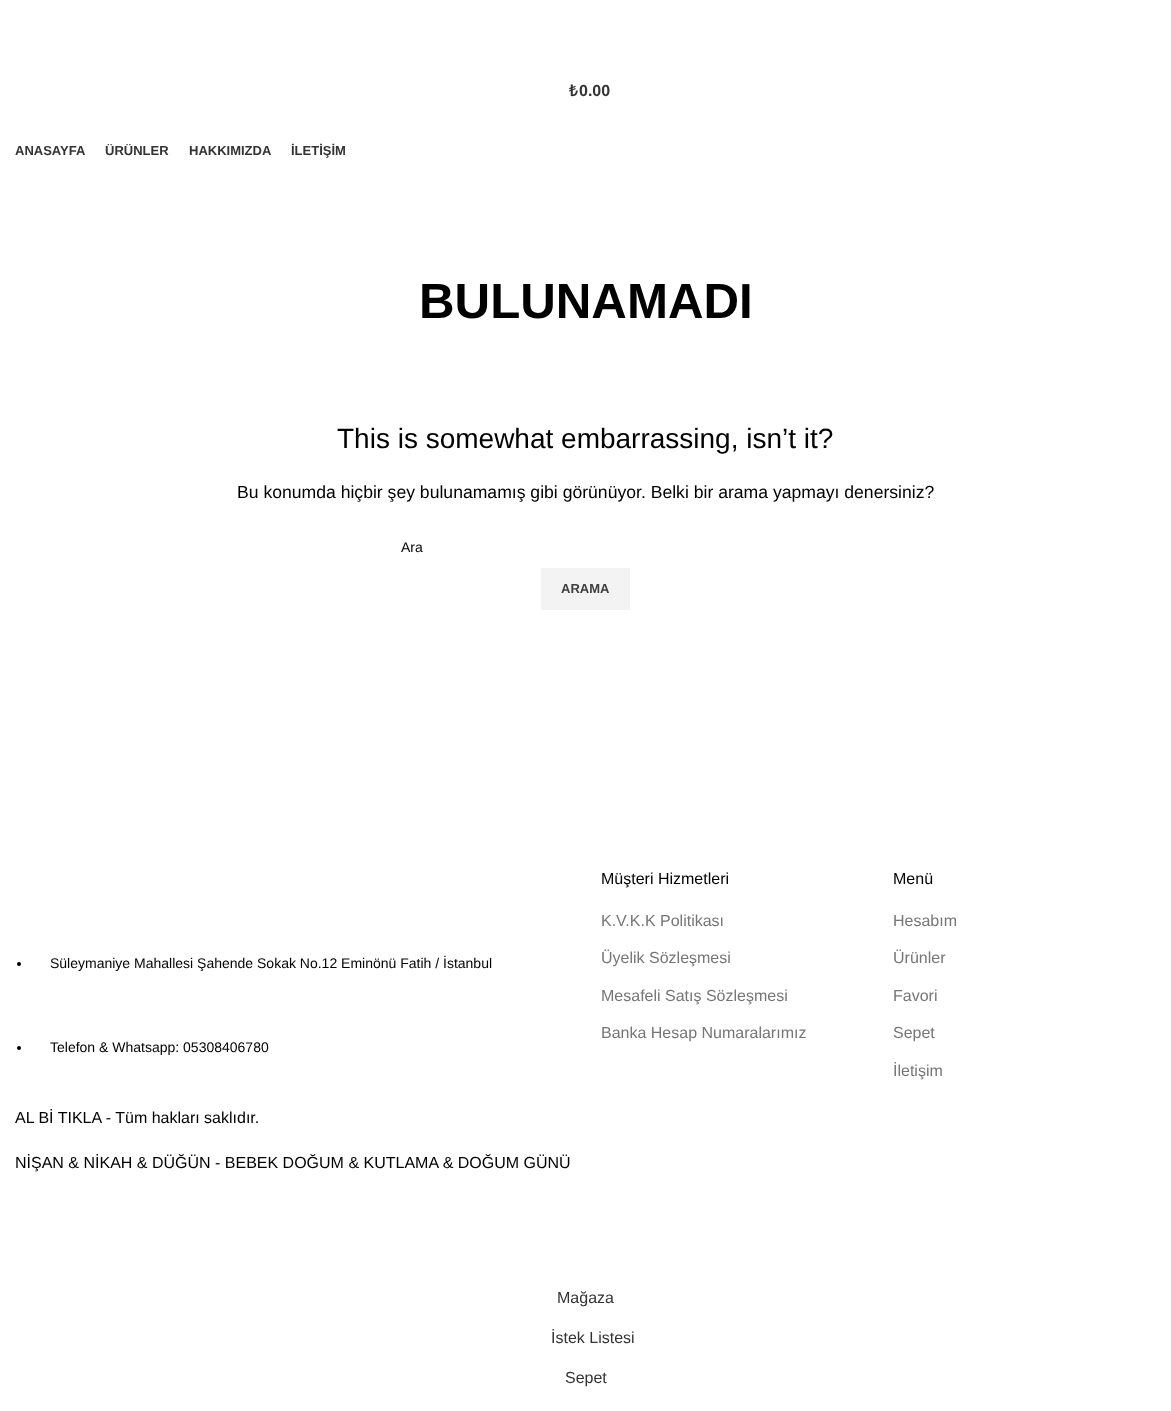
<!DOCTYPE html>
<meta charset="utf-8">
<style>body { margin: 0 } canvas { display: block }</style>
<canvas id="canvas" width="1171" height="1411"></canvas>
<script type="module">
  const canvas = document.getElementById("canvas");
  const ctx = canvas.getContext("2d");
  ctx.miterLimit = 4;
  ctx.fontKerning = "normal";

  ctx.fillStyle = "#ffffff";
  ctx.fillRect(0, 0, 1171, 1411);
  ctx.font = "600 16px Noto Sans";
  ctx.fillStyle = "#333333";
  ctx.fillText("₺", 569, 96);
  ctx.font = "bold 16px Liberation Sans";
  ctx.fillText("0.00", 579, 96);
  ctx.font = "bold 13px Liberation Sans";
  ctx.fillText("ANASAYFA", 15, 155);
  ctx.fillText("ÜRÜNLER", 105, 155);
  ctx.fillText("HAKKIMIZDA", 189, 155);
  ctx.fillText("İLETİŞİM", 291, 155);
  ctx.font = "bold 49.25px Liberation Sans";
  ctx.fillStyle = "#000000";
  ctx.fillText("BULUNAMADI", 419, 318);
  ctx.font = "28px Liberation Sans";
  ctx.fillText("This is somewhat embarrassing, isn’t it?", 337, 448);
  ctx.font = "17.6px Liberation Sans";
  ctx.fillText("Bu konumda hiçbir şey bulunamamış gibi görünüyor. Belki bir arama yapmayı denersiniz?", 237, 498);
  ctx.font = "14px Liberation Sans";
  ctx.fillText("Ara", 401, 552);
  ctx.fillStyle = "#f3f3f3";
  ctx.fillRect(541, 568, 89, 42);
  ctx.font = "bold 13px Liberation Sans";
  ctx.fillStyle = "#3e3e3e";
  ctx.fillText("ARAMA", 561, 593);
  ctx.fillStyle = "#000000";
  ctx.beginPath();
  ctx.arc(19, 964, 2, 0, Math.PI * 2);
  ctx.fill();
  ctx.font = "14px Liberation Sans";
  ctx.fillText("Süleymaniye Mahallesi Şahende Sokak No.12 Eminönü Fatih / İstanbul", 50, 968);
  ctx.beginPath();
  ctx.arc(19, 1048, 2, 0, Math.PI * 2);
  ctx.fill();
  ctx.fillText("Telefon & Whatsapp: 05308406780", 50, 1052);
  ctx.font = "16px Liberation Sans";
  ctx.fillText("Müşteri Hizmetleri", 601, 884);
  ctx.fillStyle = "#767676";
  ctx.fillText("K.V.K.K Politikası", 601, 926);
  ctx.fillText("Üyelik Sözleşmesi", 601, 963);
  ctx.fillText("Mesafeli Satış Sözleşmesi", 601, 1001);
  ctx.fillText("Banka Hesap Numaralarımız", 601, 1038);
  ctx.fillStyle = "#000000";
  ctx.fillText("Menü", 893, 884);
  ctx.fillStyle = "#767676";
  ctx.fillText("Hesabım", 893, 926);
  ctx.fillText("Ürünler", 893, 963);
  ctx.fillText("Favori", 893, 1001);
  ctx.fillText("Sepet", 893, 1038);
  ctx.fillText("İletişim", 893, 1076);
  ctx.fillStyle = "#000000";
  ctx.fillText("AL Bİ TIKLA - Tüm hakları saklıdır.", 15, 1123);
  ctx.fillText("NİŞAN & NİKAH & DÜĞÜN - BEBEK DOĞUM & KUTLAMA & DOĞUM GÜNÜ", 15, 1168);
  ctx.fillStyle = "#333333";
  ctx.fillText("Mağaza", 557, 1303);
  ctx.fillText("İstek Listesi", 551, 1343);
  ctx.fillText("Sepet", 565, 1383);
</script>
